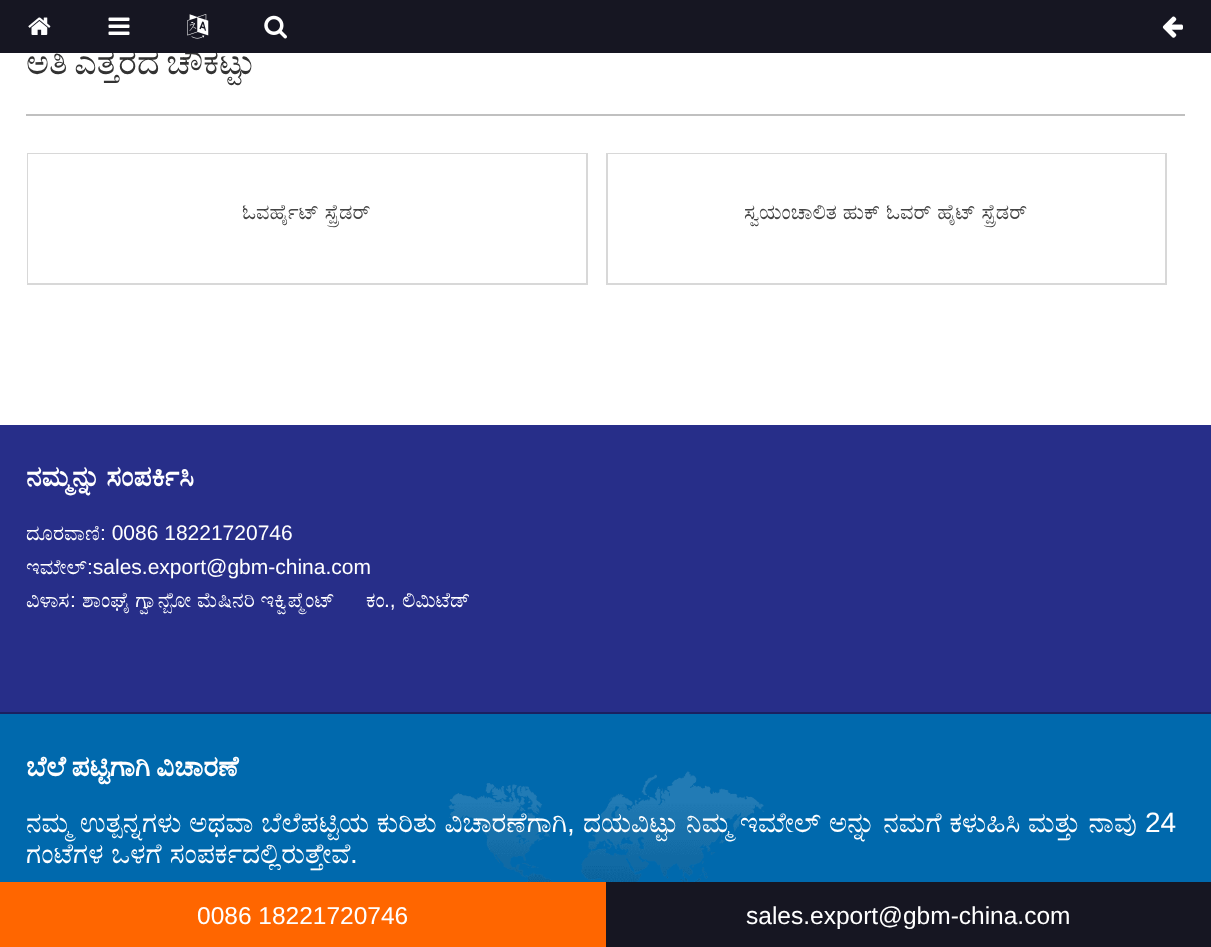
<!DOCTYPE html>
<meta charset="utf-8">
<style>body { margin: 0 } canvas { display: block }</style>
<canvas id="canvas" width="1211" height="947"></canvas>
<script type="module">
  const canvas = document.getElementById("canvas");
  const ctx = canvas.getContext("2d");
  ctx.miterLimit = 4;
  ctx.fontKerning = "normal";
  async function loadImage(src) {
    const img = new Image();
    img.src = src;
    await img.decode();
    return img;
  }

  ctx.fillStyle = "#ffffff";
  ctx.fillRect(0, 0, 1211, 947);
  ctx.wordSpacing = "-2px";
  ctx.font = "35px FreeSerif";
  ctx.fillStyle = "#333333";
  ctx.fillText("ಅತಿ ಎತ್ತರದ ಚೌಕಟ್ಟು", 26, 74);
  ctx.fillStyle = "#161622";
  ctx.fillRect(0, 0, 1211, 53);
  ctx.drawImage(await loadImage("img1.png"), 28, 17, 23, 18);
  ctx.drawImage(await loadImage("img2.png"), 108, 17, 22, 18);
  ctx.drawImage(await loadImage("img3.png"), 187, 14, 22, 25);
  ctx.drawImage(await loadImage("img4.png"), 264, 15, 23, 24);
  ctx.drawImage(await loadImage("img5.png"), 1162, 16, 21, 22);
  ctx.fillStyle = "#c0c0c0";
  ctx.fillRect(26, 114, 1159, 2);
  ctx.strokeStyle = "#d8d8d8";
  ctx.lineWidth = 2;
  ctx.strokeRect(27, 153, 560, 131);
  ctx.strokeStyle = "#ffffff";
  ctx.strokeRect(26, 152, 563, 134);
  ctx.wordSpacing = "0.5px";
  ctx.font = "21px FreeSerif";
  ctx.fillStyle = "#444444";
  ctx.fillText("ಓವರ್ಹೈಟ್ ಸ್ಪ್ರೆಡರ್", 242, 219);
  ctx.strokeStyle = "#d8d8d8";
  ctx.strokeRect(607, 153, 559, 131);
  ctx.strokeStyle = "#ffffff";
  ctx.strokeRect(605, 152, 563, 134);
  ctx.fillText("ಸ್ವಯಂಚಾಲಿತ ಹುಕ್ ಓವರ್ ಹೈಟ್ ಸ್ಪ್ರೆಡರ್", 744, 219);
  ctx.fillStyle = "#272e89";
  ctx.fillRect(0, 425, 1211, 287);
  ctx.fillStyle = "#1b2060";
  ctx.fillRect(0, 712, 1211, 2);
  ctx.wordSpacing = "-1px";
  ctx.font = "bold 28px FreeSerif";
  ctx.fillStyle = "#ffffff";
  ctx.fillText("ನಮ್ಮನ್ನು ಸಂಪರ್ಕಿಸಿ", 26, 486);
  ctx.wordSpacing = "0px";
  ctx.font = "21px FreeSerif";
  ctx.fillText("ದೂರವಾಣಿ", 26, 540);
  ctx.font = "21px Liberation Sans";
  ctx.fillText(": 0086 18221720746", 100, 540);
  ctx.font = "21px FreeSerif";
  ctx.fillText("ಇಮೇಲ್", 26, 574);
  ctx.font = "21px Liberation Sans";
  ctx.fillText(":sales.export@gbm-china.com", 87, 574);
  ctx.font = "21px FreeSerif";
  ctx.fillText("ವಿಳಾಸ", 26, 607);
  ctx.font = "21px Liberation Sans";
  ctx.fillText(":", 70, 607);
  ctx.wordSpacing = "0.5px";
  ctx.font = "21px FreeSerif";
  ctx.fillText("ಶಾಂಘೈ ಗ್ವಾನ್ಬೋ ಮೆಷಿನರಿ ಇಕ್ವಿಪ್ಮೆಂಟ್", 82, 607);
  ctx.fillText("ಕಂ", 366, 607);
  ctx.wordSpacing = "0px";
  ctx.font = "21px Liberation Sans";
  ctx.fillText(".,", 384, 607);
  ctx.font = "21px FreeSerif";
  ctx.fillText("ಲಿಮಿಟೆಡ್", 402, 607);
  ctx.fillStyle = "#0069ad";
  ctx.fillRect(0, 714, 1211, 168);
  ctx.drawImage(await loadImage("img6.png"), 448, 771, 317, 111);
  ctx.wordSpacing = "-1px";
  ctx.font = "bold 28px FreeSerif";
  ctx.fillStyle = "#ffffff";
  ctx.fillText("ಬೆಲೆ ಪಟ್ಟಿಗಾಗಿ ವಿಚಾರಣೆ", 26, 776);
  ctx.wordSpacing = "0.75px";
  ctx.font = "28px FreeSerif";
  ctx.fillText("ನಮ್ಮ ಉತ್ಪನ್ನಗಳು ಅಥವಾ ಬೆಲೆಪಟ್ಟಿಯ ಕುರಿತು ವಿಚಾರಣೆಗಾಗಿ", 26, 832);
  ctx.wordSpacing = "0px";
  ctx.font = "28px Liberation Sans";
  ctx.fillText(",", 567, 832);
  ctx.wordSpacing = "0.75px";
  ctx.font = "28px FreeSerif";
  ctx.fillText("ದಯವಿಟ್ಟು ನಿಮ್ಮ ಇಮೇಲ್ ಅನ್ನು ನಮಗೆ ಕಳುಹಿಸಿ ಮತ್ತು ನಾವು", 583, 832);
  ctx.wordSpacing = "0px";
  ctx.font = "28px Liberation Sans";
  ctx.fillText("24", 1145, 832);
  ctx.wordSpacing = "1px";
  ctx.font = "28px FreeSerif";
  ctx.fillText("ಗಂಟೆಗಳ ಒಳಗೆ ಸಂಪರ್ಕದಲ್ಲಿರುತ್ತೇವೆ", 26, 863);
  ctx.wordSpacing = "0px";
  ctx.font = "28px Liberation Sans";
  ctx.fillText(".", 350, 863);
  ctx.fillStyle = "#161622";
  ctx.fillRect(606, 882, 605, 65);
  ctx.fillStyle = "#ff6600";
  ctx.fillRect(0, 882, 606, 65);
  ctx.font = "24.5px Liberation Sans";
  ctx.fillStyle = "#ffffff";
  ctx.fillText("0086 18221720746", 197, 924);
  ctx.fillText("sales.export@gbm-china.com", 746, 924);
</script>
